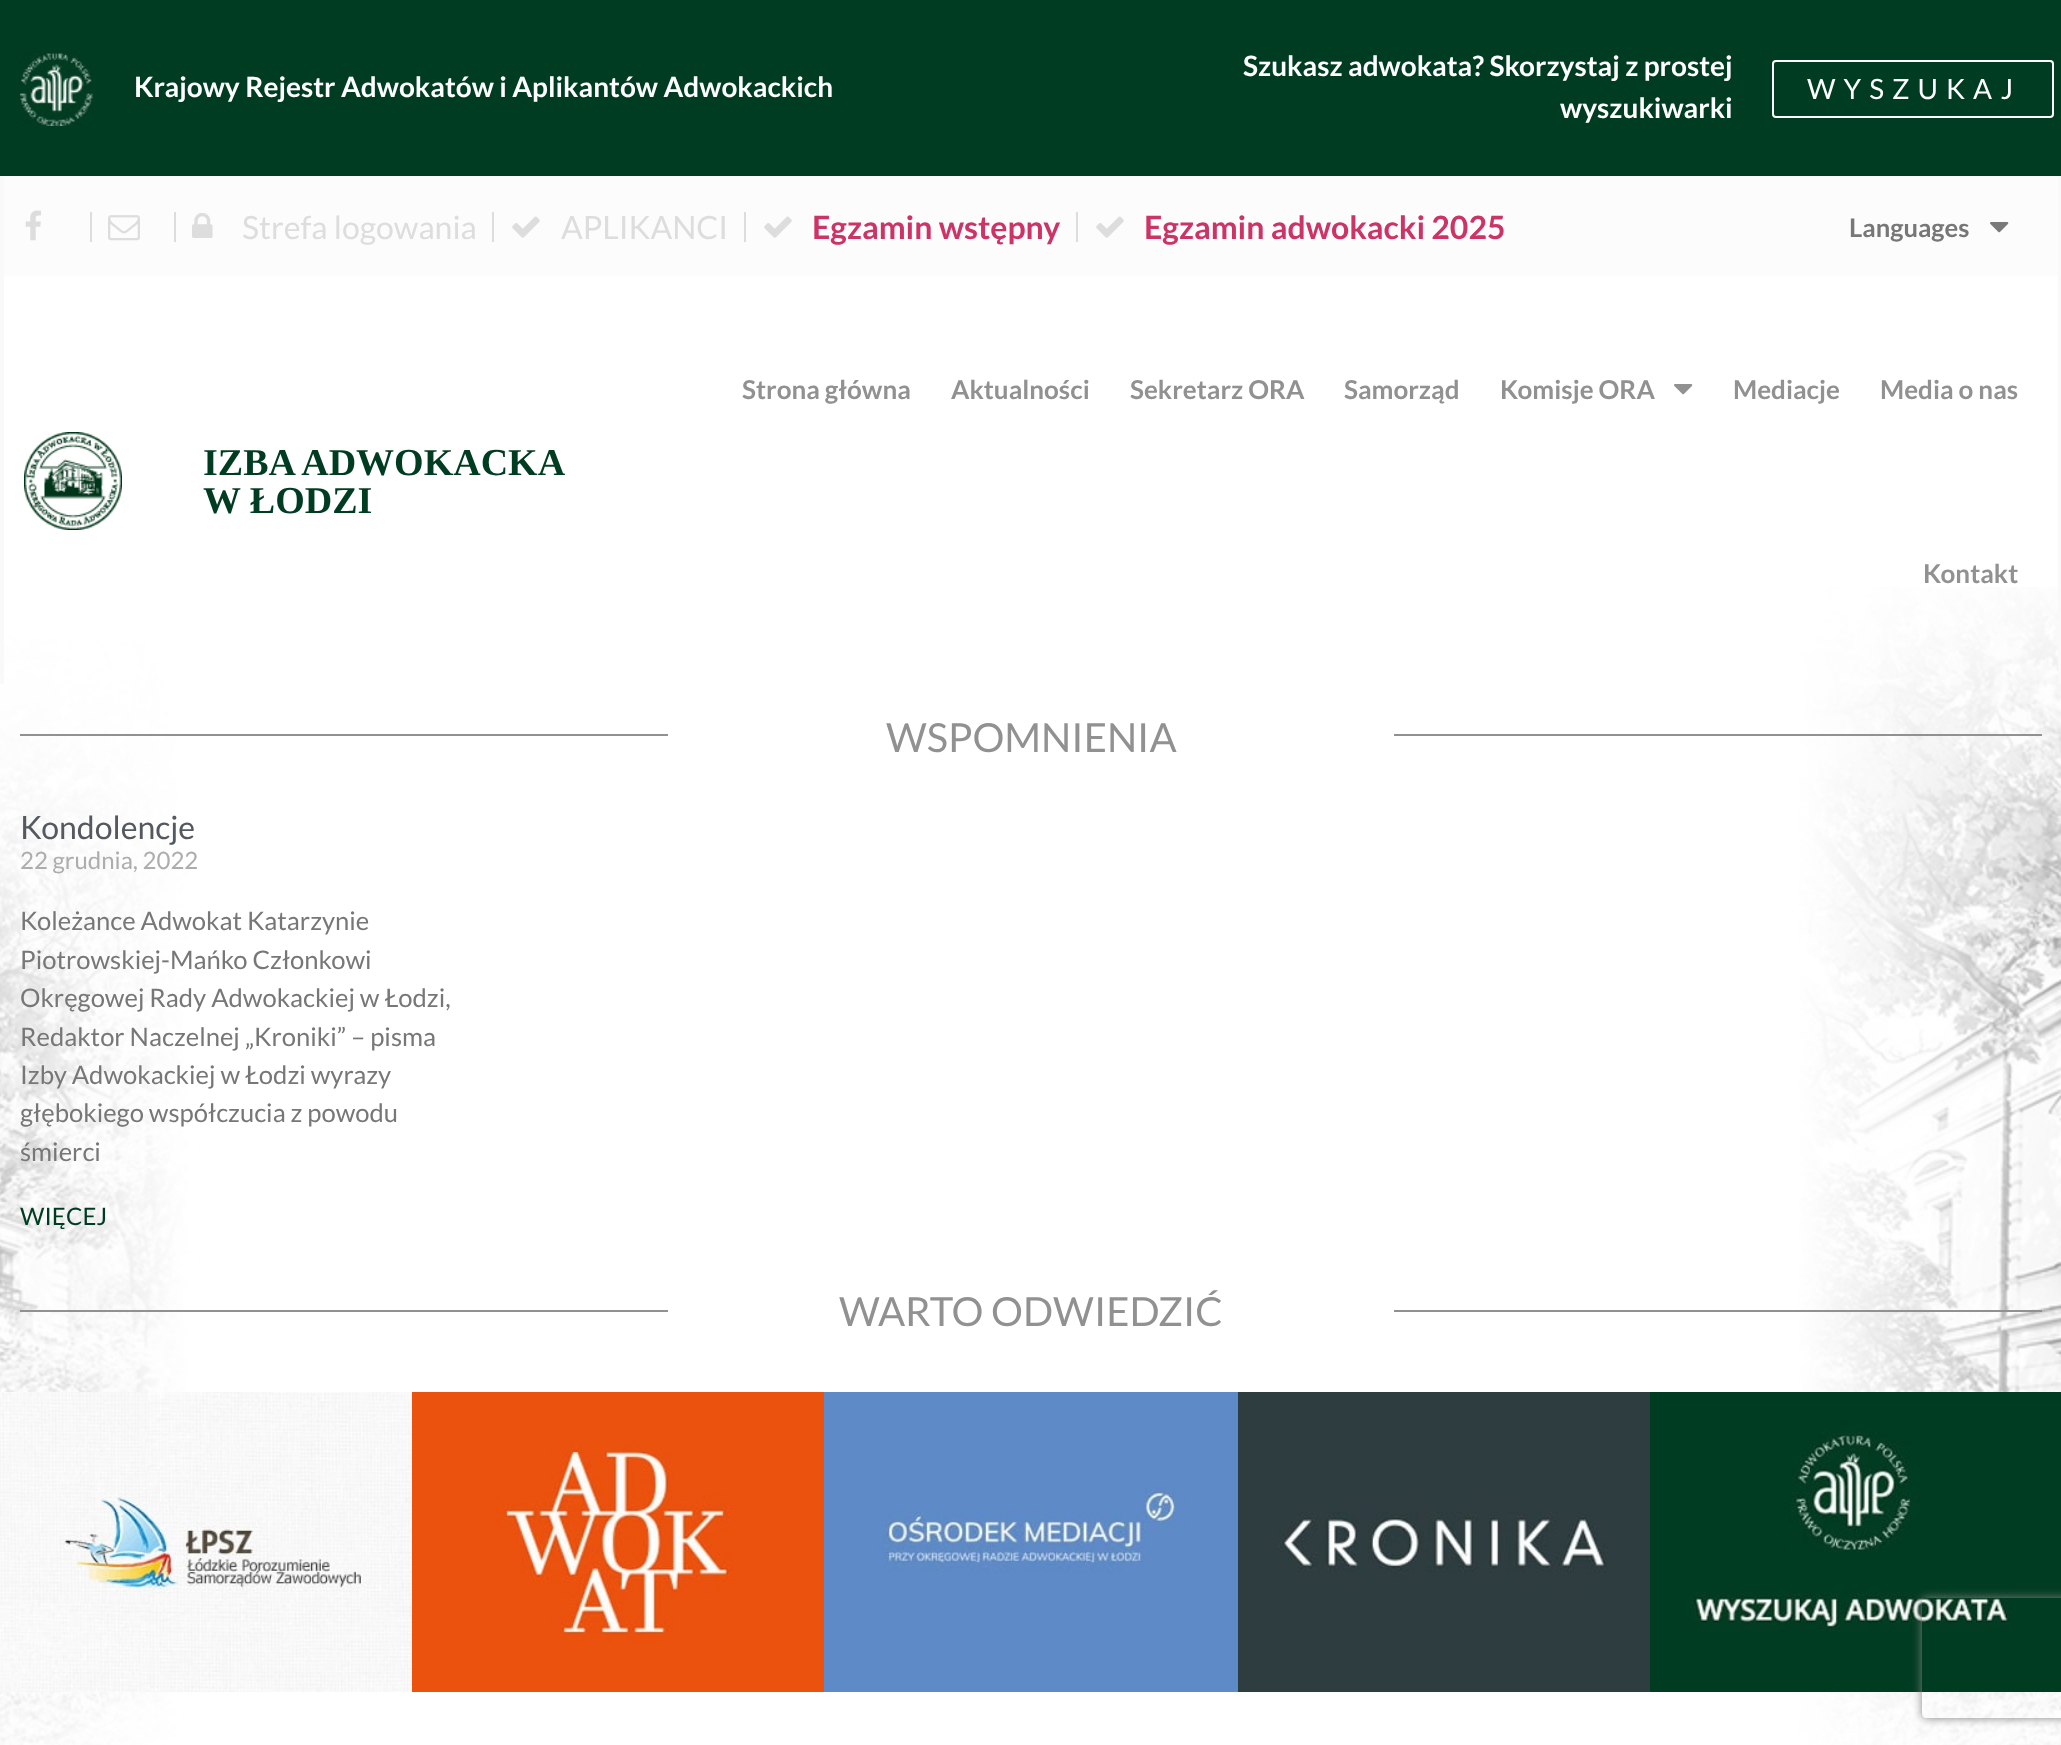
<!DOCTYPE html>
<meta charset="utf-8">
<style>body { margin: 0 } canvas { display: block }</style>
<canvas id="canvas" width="2061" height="1745"></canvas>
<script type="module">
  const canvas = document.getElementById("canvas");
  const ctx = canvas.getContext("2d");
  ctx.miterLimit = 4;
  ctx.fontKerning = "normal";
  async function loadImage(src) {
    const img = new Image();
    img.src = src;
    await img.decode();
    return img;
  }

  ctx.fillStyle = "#ffffff";
  ctx.fillRect(0, 0, 2061, 1745);
  ctx.drawImage(await loadImage("img1.png"), 0, 587, 2061, 1158);
  ctx.fillStyle = "#003c22";
  ctx.fillRect(0, 0, 2061, 176);
  ctx.drawImage(await loadImage("img2.png"), 20, 52, 74, 74);
  ctx.font = "bold 28px Lato";
  ctx.fillStyle = "#ffffff";
  ctx.fillText("Krajowy Rejestr Adwokatów i Aplikantów Adwokackich", 134, 97);
  ctx.fillText("Szukasz adwokata? Skorzystaj z prostej", 1243, 76);
  ctx.fillText("wyszukiwarki", 1560, 118);
  ctx.beginPath();
  ctx.roundRect(1773, 61, 280, 56, 3);
  ctx.strokeStyle = "#ffffff";
  ctx.lineWidth = 2;
  ctx.stroke();
  ctx.letterSpacing = "8px";
  ctx.font = "28px Lato";
  ctx.fillText("WYSZUKAJ", 1807, 99);
  ctx.fillStyle = "#f9f9f9";
  ctx.fillRect(2058, 176, 3, 508);
  ctx.fillRect(0, 176, 4, 508);
  ctx.fillStyle = "#fcfcfc";
  ctx.fillRect(4, 176, 2054, 100);
  ctx.drawImage(await loadImage("img3.png"), 25, 210, 16, 31);
  ctx.fillStyle = "#dddddd";
  ctx.fillRect(90, 212, 2, 30);
  ctx.drawImage(await loadImage("img4.png"), 108, 215, 32, 26);
  ctx.fillRect(174, 212, 2, 30);
  ctx.drawImage(await loadImage("img5.png"), 192, 213, 21, 25);
  ctx.letterSpacing = "0px";
  ctx.font = "32px Lato";
  ctx.fillText("Strefa logowania", 242, 239);
  ctx.fillRect(492, 212, 2, 30);
  ctx.drawImage(await loadImage("img6.png"), 512, 216, 28, 22);
  ctx.fillText("APLIKANCI", 561, 239);
  ctx.fillRect(744, 212, 2, 30);
  ctx.drawImage(await loadImage("img6.png"), 764, 216, 28, 22);
  ctx.font = "bold 32px Lato";
  ctx.fillStyle = "#cc3366";
  ctx.fillText("Egzamin wstępny", 812, 239);
  ctx.fillStyle = "#dddddd";
  ctx.fillRect(1076, 212, 2, 30);
  ctx.drawImage(await loadImage("img6.png"), 1096, 216, 28, 22);
  ctx.fillStyle = "#cc3366";
  ctx.fillText("Egzamin adwokacki 2025", 1144, 239);
  ctx.font = "bold 25.6px Lato";
  ctx.fillStyle = "#777777";
  ctx.fillText("Languages", 1849, 237);
  ctx.drawImage(await loadImage("img7.png"), 1990, 222, 19, 11);
  ctx.drawImage(await loadImage("img8.png"), 24, 432, 98, 98);
  ctx.font = "bold 38px Liberation Serif";
  ctx.fillStyle = "#003c22";
  ctx.fillText("IZBA ADWOKACKA", 203, 475);
  ctx.fillText("W ŁODZI", 203, 513);
  ctx.font = "bold 26px Lato";
  ctx.fillStyle = "#919191";
  ctx.fillText("Strona główna", 742, 399);
  ctx.fillText("Aktualności", 951, 399);
  ctx.fillText("Sekretarz ORA", 1130, 399);
  ctx.fillText("Samorząd", 1344, 399);
  ctx.fillText("Komisje ORA", 1500, 399);
  ctx.drawImage(await loadImage("img9.png"), 1674, 384, 19, 11);
  ctx.fillText("Mediacje", 1733, 399);
  ctx.fillText("Media o nas", 1880, 399);
  ctx.fillText("Kontakt", 1923, 583);
  ctx.fillRect(20, 734, 648, 2);
  ctx.font = "40px Lato";
  ctx.fillText("WSPOMNIENIA", 886, 752);
  ctx.fillRect(1394, 734, 648, 2);
  ctx.font = "32px Lato";
  ctx.fillStyle = "#54595f";
  ctx.fillText("Kondolencje", 20, 839);
  ctx.font = "24px Lato";
  ctx.fillStyle = "#adadad";
  ctx.fillText("22 grudnia, 2022", 20, 869);
  ctx.font = "25.6px Lato";
  ctx.fillStyle = "#777777";
  ctx.fillText("Koleżance Adwokat Katarzynie", 20, 930);
  ctx.fillText("Piotrowskiej-Mańko Członkowi", 20, 969);
  ctx.fillText("Okręgowej Rady Adwokackiej w Łodzi,", 20, 1007);
  ctx.fillText("Redaktor Naczelnej „Kroniki” – pisma", 20, 1046);
  ctx.fillText("Izby Adwokackiej w Łodzi wyrazy", 20, 1084);
  ctx.fillText("głębokiego współczucia z powodu", 20, 1122);
  ctx.fillText("śmierci", 20, 1161);
  ctx.font = "24px Lato";
  ctx.fillStyle = "#003c22";
  ctx.fillText("WIĘCEJ", 20, 1225);
  ctx.fillStyle = "#919191";
  ctx.fillRect(20, 1310, 648, 2);
  ctx.font = "40px Lato";
  ctx.fillText("WARTO ODWIEDZIĆ", 839, 1326);
  ctx.fillRect(1394, 1310, 648, 2);
  ctx.drawImage(await loadImage("img10.png"), 0, 1392, 412, 300);
  ctx.drawImage(await loadImage("img11.png"), 412, 1392, 412, 300);
  ctx.drawImage(await loadImage("img12.png"), 824, 1392, 414, 300);
  ctx.drawImage(await loadImage("img13.png"), 1238, 1392, 412, 300);
  ctx.drawImage(await loadImage("img14.png"), 1650, 1392, 411, 300);
  ctx.save();
  ctx.beginPath();
  ctx.moveTo(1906, 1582);
  ctx.lineTo(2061, 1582);
  ctx.lineTo(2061, 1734);
  ctx.lineTo(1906, 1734);
  ctx.closePath();
  ctx.moveTo(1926, 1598);
  ctx.lineTo(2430, 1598);
  ctx.bezierCurveTo(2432, 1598, 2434, 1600, 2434, 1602);
  ctx.lineTo(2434, 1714);
  ctx.bezierCurveTo(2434, 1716, 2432, 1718, 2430, 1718);
  ctx.lineTo(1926, 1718);
  ctx.bezierCurveTo(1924, 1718, 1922, 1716, 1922, 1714);
  ctx.lineTo(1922, 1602);
  ctx.bezierCurveTo(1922, 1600, 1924, 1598, 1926, 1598);
  ctx.closePath();
  ctx.clip("evenodd");
  ctx.fillStyle = "#808080";
  ctx.filter = "blur(5px)";
  ctx.beginPath();
  ctx.roundRect(1922, 1598, 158, 120, 4);
  ctx.fill();
  ctx.filter = "none";
  ctx.restore();
</script>
